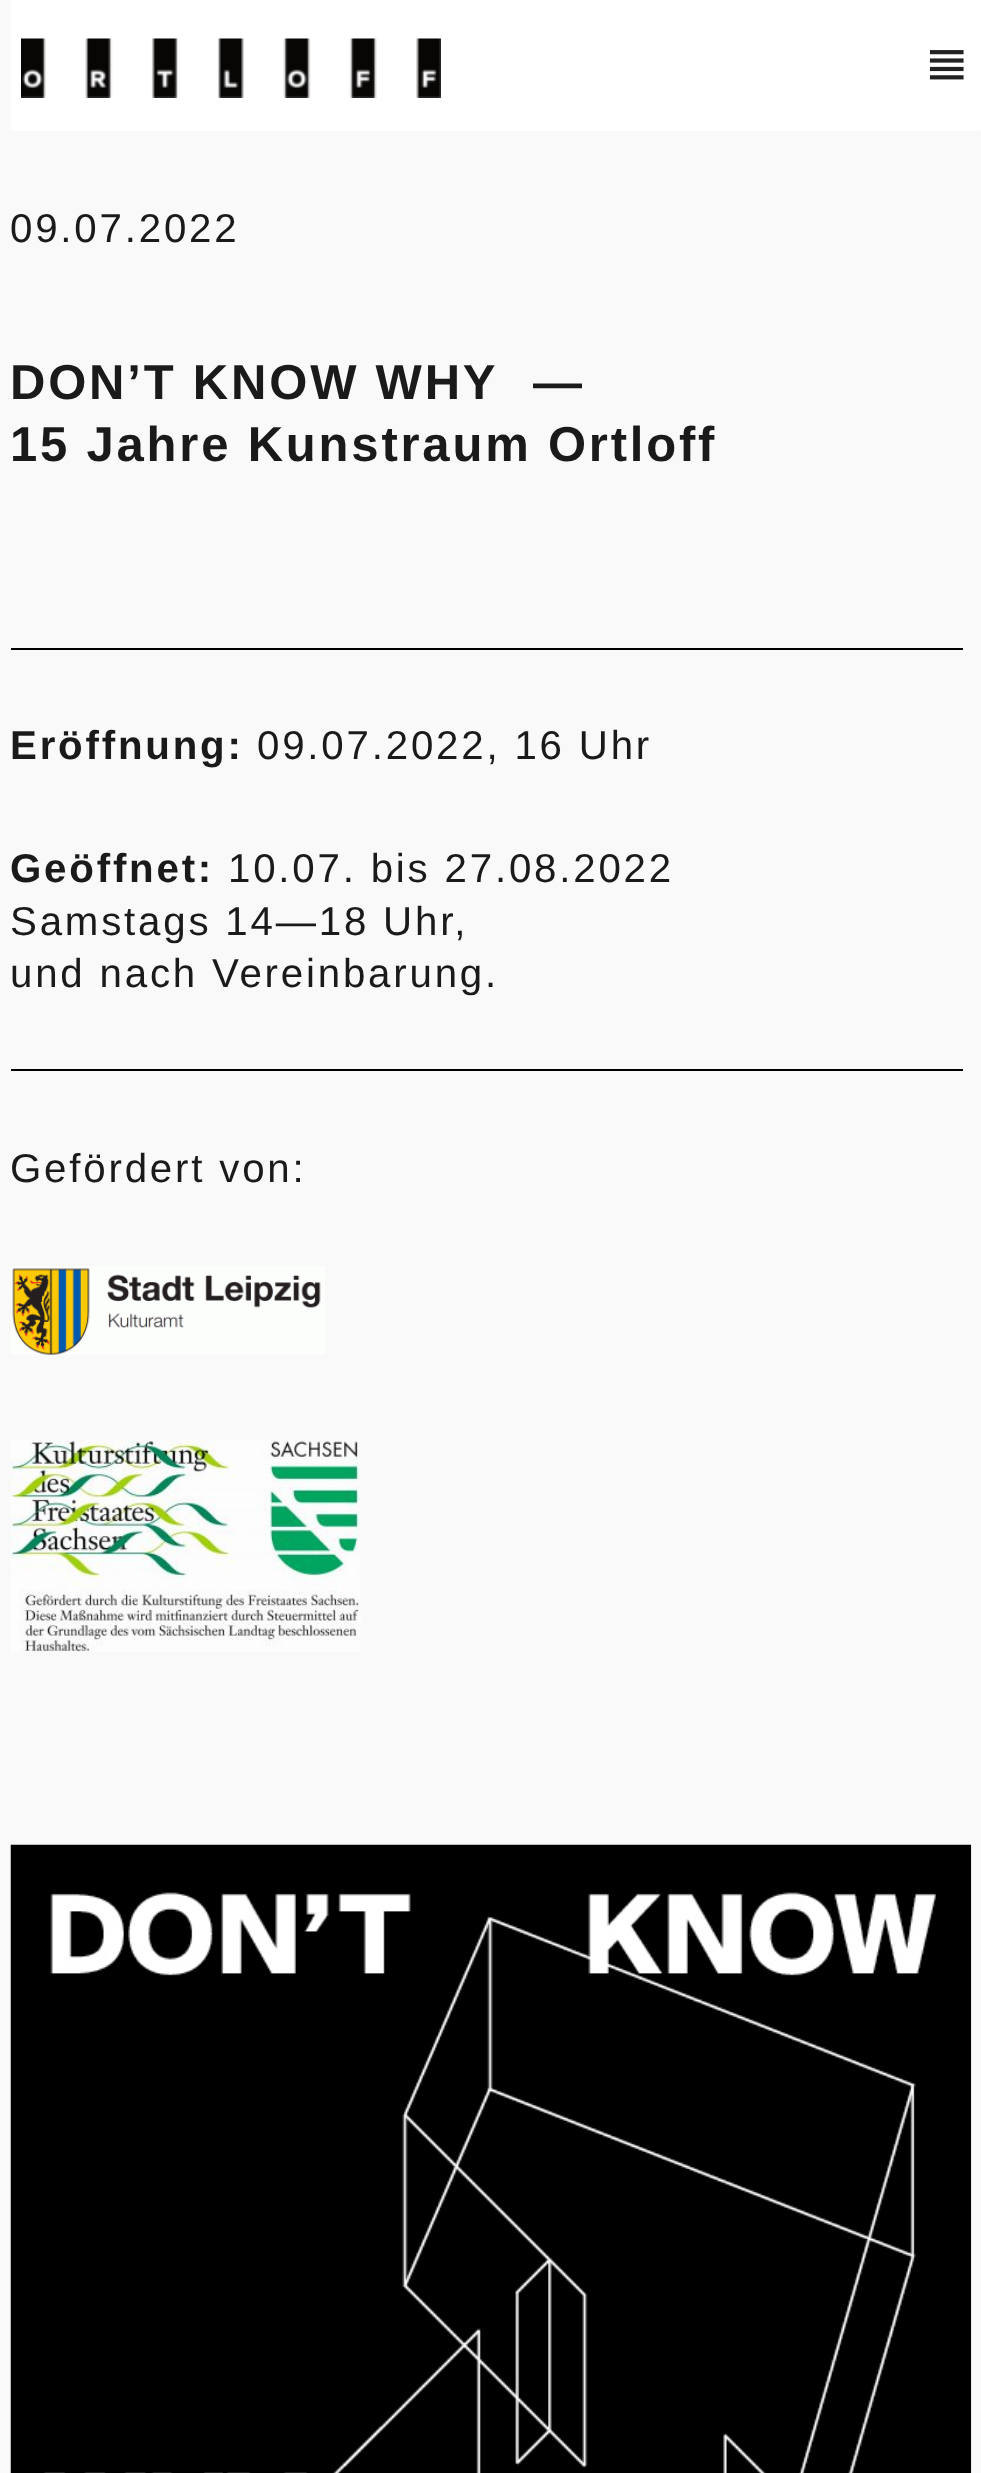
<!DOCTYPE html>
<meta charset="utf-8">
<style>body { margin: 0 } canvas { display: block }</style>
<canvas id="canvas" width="981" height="2473"></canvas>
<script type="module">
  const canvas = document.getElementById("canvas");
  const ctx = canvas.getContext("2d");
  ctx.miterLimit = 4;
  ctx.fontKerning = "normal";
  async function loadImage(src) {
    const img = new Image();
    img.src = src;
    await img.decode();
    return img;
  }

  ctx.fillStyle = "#f9f9f9";
  ctx.fillRect(0, 0, 981, 2473);
  ctx.fillStyle = "#ffffff";
  ctx.beginPath();
  ctx.roundRect(11, 0, 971, 131, 4);
  ctx.fill();
  ctx.drawImage(await loadImage("img1.png"), 21, 38, 420, 60);
  ctx.drawImage(await loadImage("img2.png"), 929, 50, 35, 30);
  ctx.letterSpacing = "2.8px";
  ctx.font = "40.25px Liberation Sans";
  ctx.fillStyle = "#1a1a1a";
  ctx.fillText("09.07.2022", 10, 242);
  ctx.font = "bold 49px Liberation Sans";
  ctx.fillText("DON’T KNOW WHY", 10, 399);
  ctx.fillText("—", 533, 399);
  ctx.fillText("15 Jahre Kunstraum Ortloff", 10, 461);
  ctx.fillStyle = "#000000";
  ctx.fillRect(11, 648, 952, 2);
  ctx.font = "bold 40.25px Liberation Sans";
  ctx.fillStyle = "#1a1a1a";
  ctx.fillText("Eröffnung:", 10, 759);
  ctx.font = "40.25px Liberation Sans";
  ctx.fillText("09.07.2022, 16 Uhr", 257, 759);
  ctx.font = "bold 40.25px Liberation Sans";
  ctx.fillText("Geöffnet:", 10, 882);
  ctx.font = "40.25px Liberation Sans";
  ctx.fillText("10.07. bis 27.08.2022", 228, 882);
  ctx.fillText("Samstags 14—18 Uhr,", 10, 935);
  ctx.fillText("und nach Vereinbarung.", 10, 987);
  ctx.fillStyle = "#000000";
  ctx.fillRect(11, 1069, 952, 2);
  ctx.fillStyle = "#1a1a1a";
  ctx.fillText("Gefördert von:", 10, 1182);
  ctx.drawImage(await loadImage("img3.png"), 11, 1266, 314, 89);
  ctx.drawImage(await loadImage("img4.png"), 10, 1440, 351, 212);
  ctx.drawImage(await loadImage("img5.png"), 10, 1844, 962, 629);
</script>
